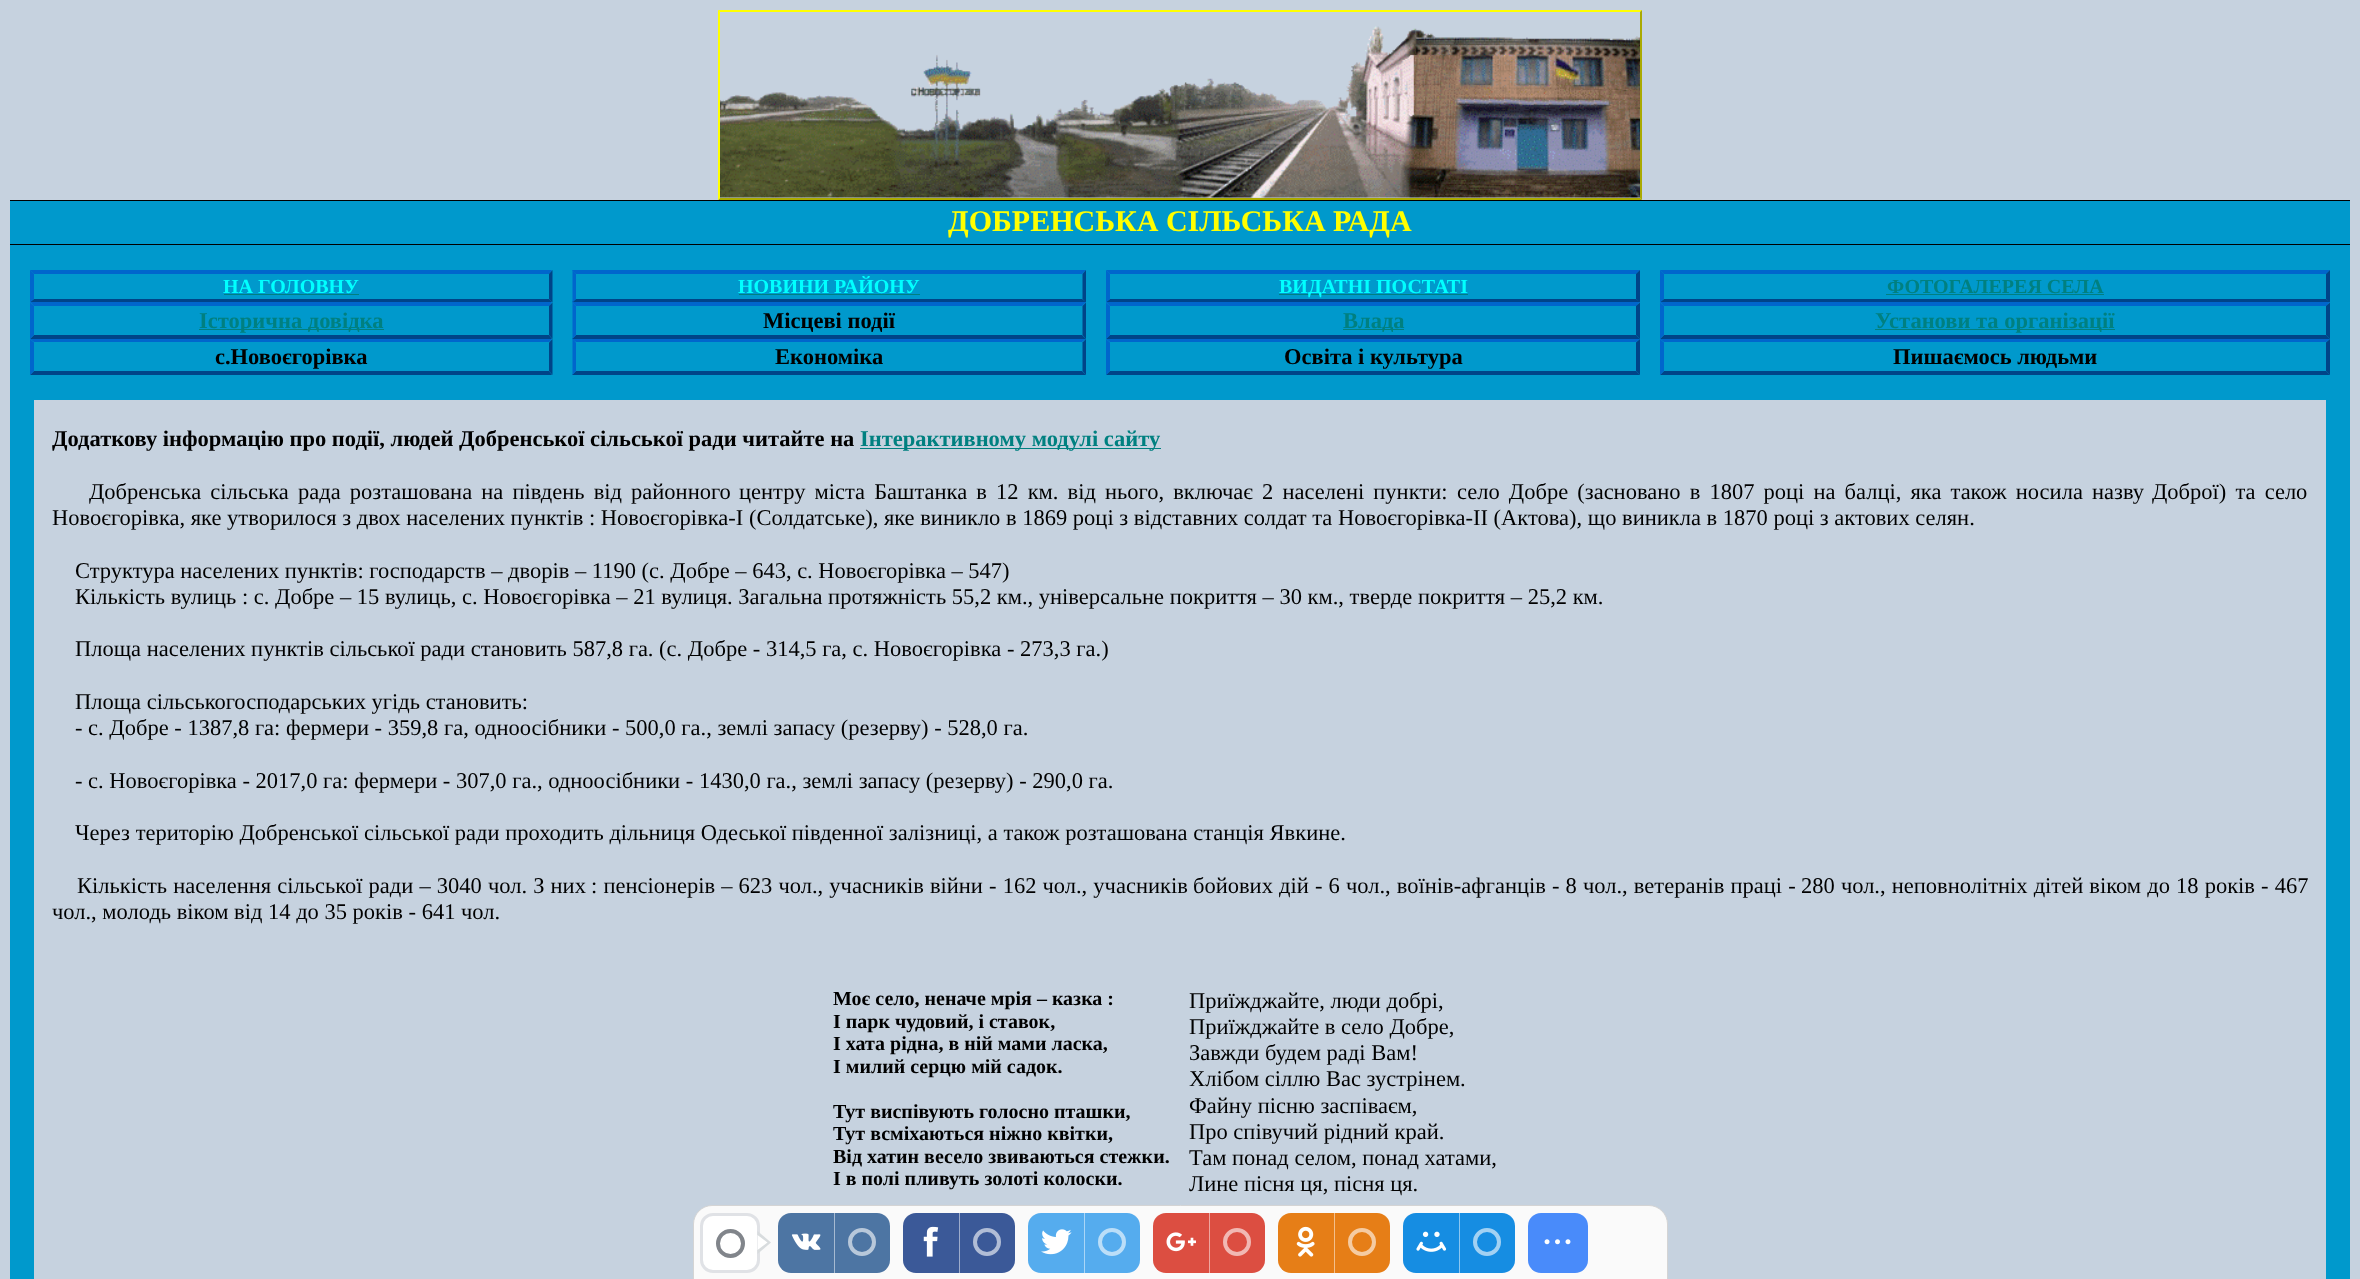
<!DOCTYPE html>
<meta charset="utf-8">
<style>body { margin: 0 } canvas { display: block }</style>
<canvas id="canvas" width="2360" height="1279"></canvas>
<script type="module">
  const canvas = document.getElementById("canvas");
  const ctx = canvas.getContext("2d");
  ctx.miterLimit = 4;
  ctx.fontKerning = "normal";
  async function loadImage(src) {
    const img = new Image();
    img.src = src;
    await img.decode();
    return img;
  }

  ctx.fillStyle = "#c6d2df";
  ctx.fillRect(0, 0, 2360, 1279);
  ctx.fillStyle = "#ffff00";
  ctx.beginPath();
  ctx.moveTo(718, 10);
  ctx.lineTo(1642, 10);
  ctx.lineTo(1640, 12);
  ctx.lineTo(720, 12);
  ctx.closePath();
  ctx.fill();
  ctx.fillStyle = "#aaaa00";
  ctx.beginPath();
  ctx.moveTo(1642, 10);
  ctx.lineTo(1642, 200);
  ctx.lineTo(1640, 198);
  ctx.lineTo(1640, 12);
  ctx.closePath();
  ctx.fill();
  ctx.beginPath();
  ctx.moveTo(1642, 200);
  ctx.lineTo(718, 200);
  ctx.lineTo(720, 198);
  ctx.lineTo(1640, 198);
  ctx.closePath();
  ctx.fill();
  ctx.fillStyle = "#ffff00";
  ctx.beginPath();
  ctx.moveTo(718, 200);
  ctx.lineTo(718, 10);
  ctx.lineTo(720, 12);
  ctx.lineTo(720, 198);
  ctx.closePath();
  ctx.fill();
  ctx.drawImage(await loadImage("img1.png"), 720, 26, 920, 172);
  ctx.fillStyle = "#0099cc";
  ctx.fillRect(10, 201, 2340, 43);
  ctx.fillStyle = "#000000";
  ctx.fillRect(10, 200, 2340, 1);
  ctx.font = "bold 30px Liberation Serif";
  ctx.fillStyle = "#ffff00";
  ctx.fillText("ДОБРЕНСЬКА СІЛЬСЬКА РАДА", 948, 231);
  ctx.fillStyle = "#0099cc";
  ctx.fillRect(10, 245, 2340, 155);
  ctx.fillStyle = "#000000";
  ctx.fillRect(10, 244, 2340, 1);
  ctx.fillStyle = "#0066cc";
  ctx.beginPath();
  ctx.moveTo(30, 270);
  ctx.lineTo(552, 270);
  ctx.lineTo(549, 274);
  ctx.lineTo(34, 274);
  ctx.closePath();
  ctx.fill();
  ctx.fillStyle = "#004488";
  ctx.beginPath();
  ctx.moveTo(552.5, 270);
  ctx.lineTo(552.5, 302.5);
  ctx.lineTo(549, 299);
  ctx.lineTo(549, 274);
  ctx.closePath();
  ctx.fill();
  ctx.beginPath();
  ctx.moveTo(552, 302);
  ctx.lineTo(30, 302);
  ctx.lineTo(34, 299);
  ctx.lineTo(549, 299);
  ctx.closePath();
  ctx.fill();
  ctx.fillStyle = "#0066cc";
  ctx.beginPath();
  ctx.moveTo(30, 302.5);
  ctx.lineTo(30, 270);
  ctx.lineTo(34, 274);
  ctx.lineTo(34, 299);
  ctx.closePath();
  ctx.fill();
  ctx.font = "bold 20px Liberation Serif";
  ctx.fillStyle = "#00ffff";
  ctx.fillText("НА ГОЛОВНУ", 223, 293);
  ctx.fillStyle = "#008080";
  ctx.fillRect(224, 294, 135, 1);
  ctx.fillStyle = "#0066cc";
  ctx.beginPath();
  ctx.moveTo(572, 270);
  ctx.lineTo(1086, 270);
  ctx.lineTo(1082, 274);
  ctx.lineTo(576, 274);
  ctx.closePath();
  ctx.fill();
  ctx.fillStyle = "#004488";
  ctx.beginPath();
  ctx.moveTo(1086, 270);
  ctx.lineTo(1086, 302.5);
  ctx.lineTo(1082.5, 299);
  ctx.lineTo(1082.5, 274);
  ctx.closePath();
  ctx.fill();
  ctx.beginPath();
  ctx.moveTo(1086, 302);
  ctx.lineTo(572, 302);
  ctx.lineTo(576, 299);
  ctx.lineTo(1082, 299);
  ctx.closePath();
  ctx.fill();
  ctx.fillStyle = "#0066cc";
  ctx.beginPath();
  ctx.moveTo(572.5, 302.5);
  ctx.lineTo(572.5, 270);
  ctx.lineTo(576, 274);
  ctx.lineTo(576, 299);
  ctx.closePath();
  ctx.fill();
  ctx.fillStyle = "#00ffff";
  ctx.fillText("НОВИНИ РАЙОНУ", 738, 293);
  ctx.fillStyle = "#008080";
  ctx.fillRect(739, 294, 181, 1);
  ctx.fillStyle = "#0066cc";
  ctx.beginPath();
  ctx.moveTo(1106, 270);
  ctx.lineTo(1640, 270);
  ctx.lineTo(1636, 274);
  ctx.lineTo(1110, 274);
  ctx.closePath();
  ctx.fill();
  ctx.fillStyle = "#004488";
  ctx.beginPath();
  ctx.moveTo(1640, 270);
  ctx.lineTo(1640, 302.5);
  ctx.lineTo(1636, 299);
  ctx.lineTo(1636, 274);
  ctx.closePath();
  ctx.fill();
  ctx.beginPath();
  ctx.moveTo(1640, 302);
  ctx.lineTo(1106, 302);
  ctx.lineTo(1110, 299);
  ctx.lineTo(1636, 299);
  ctx.closePath();
  ctx.fill();
  ctx.fillStyle = "#0066cc";
  ctx.beginPath();
  ctx.moveTo(1106, 302.5);
  ctx.lineTo(1106, 270);
  ctx.lineTo(1110, 274);
  ctx.lineTo(1110, 299);
  ctx.closePath();
  ctx.fill();
  ctx.fillStyle = "#008080";
  ctx.fillRect(1279, 294, 189, 1);
  ctx.fillStyle = "#00ffff";
  ctx.fillText("ВИДАТНІ ПОСТАТІ", 1279, 293);
  ctx.fillStyle = "#0066cc";
  ctx.beginPath();
  ctx.moveTo(1660, 270);
  ctx.lineTo(2330, 270);
  ctx.lineTo(2326, 274);
  ctx.lineTo(1664, 274);
  ctx.closePath();
  ctx.fill();
  ctx.fillStyle = "#004488";
  ctx.beginPath();
  ctx.moveTo(2330, 270);
  ctx.lineTo(2330, 302.5);
  ctx.lineTo(2326, 299);
  ctx.lineTo(2326, 274);
  ctx.closePath();
  ctx.fill();
  ctx.beginPath();
  ctx.moveTo(2330, 302);
  ctx.lineTo(1660, 302);
  ctx.lineTo(1664, 299);
  ctx.lineTo(2326, 299);
  ctx.closePath();
  ctx.fill();
  ctx.fillStyle = "#0066cc";
  ctx.beginPath();
  ctx.moveTo(1660, 302.5);
  ctx.lineTo(1660, 270);
  ctx.lineTo(1664, 274);
  ctx.lineTo(1664, 299);
  ctx.closePath();
  ctx.fill();
  ctx.fillStyle = "#008080";
  ctx.fillText("ФОТОГАЛЕРЕЯ СЕЛА", 1887, 293);
  ctx.fillRect(1886, 294, 218, 1);
  ctx.fillStyle = "#0066cc";
  ctx.beginPath();
  ctx.moveTo(30, 302);
  ctx.lineTo(552, 302);
  ctx.lineTo(549, 306);
  ctx.lineTo(34, 306);
  ctx.closePath();
  ctx.fill();
  ctx.fillStyle = "#004488";
  ctx.beginPath();
  ctx.moveTo(552.5, 302.5);
  ctx.lineTo(552.5, 339);
  ctx.lineTo(549, 335);
  ctx.lineTo(549, 306);
  ctx.closePath();
  ctx.fill();
  ctx.beginPath();
  ctx.moveTo(552, 339);
  ctx.lineTo(30, 339);
  ctx.lineTo(34, 335);
  ctx.lineTo(549, 335);
  ctx.closePath();
  ctx.fill();
  ctx.fillStyle = "#0066cc";
  ctx.beginPath();
  ctx.moveTo(30, 339);
  ctx.lineTo(30, 302.5);
  ctx.lineTo(34, 306);
  ctx.lineTo(34, 335);
  ctx.closePath();
  ctx.fill();
  ctx.fillStyle = "#008080";
  ctx.fillRect(199, 329, 185, 1);
  ctx.font = "bold 22.5px Liberation Serif";
  ctx.fillText("Історична довідка", 199, 328);
  ctx.fillStyle = "#0066cc";
  ctx.beginPath();
  ctx.moveTo(572, 302);
  ctx.lineTo(1086, 302);
  ctx.lineTo(1082, 306);
  ctx.lineTo(576, 306);
  ctx.closePath();
  ctx.fill();
  ctx.fillStyle = "#004488";
  ctx.beginPath();
  ctx.moveTo(1086, 302.5);
  ctx.lineTo(1086, 339);
  ctx.lineTo(1082.5, 335);
  ctx.lineTo(1082.5, 306);
  ctx.closePath();
  ctx.fill();
  ctx.beginPath();
  ctx.moveTo(1086, 339);
  ctx.lineTo(572, 339);
  ctx.lineTo(576, 335);
  ctx.lineTo(1082, 335);
  ctx.closePath();
  ctx.fill();
  ctx.fillStyle = "#0066cc";
  ctx.beginPath();
  ctx.moveTo(572.5, 339);
  ctx.lineTo(572.5, 302.5);
  ctx.lineTo(576, 306);
  ctx.lineTo(576, 335);
  ctx.closePath();
  ctx.fill();
  ctx.fillStyle = "#000000";
  ctx.fillText("Місцеві події", 763, 328);
  ctx.fillStyle = "#0066cc";
  ctx.beginPath();
  ctx.moveTo(1106, 302);
  ctx.lineTo(1640, 302);
  ctx.lineTo(1636, 306);
  ctx.lineTo(1110, 306);
  ctx.closePath();
  ctx.fill();
  ctx.fillStyle = "#004488";
  ctx.beginPath();
  ctx.moveTo(1640, 302.5);
  ctx.lineTo(1640, 339);
  ctx.lineTo(1636, 335);
  ctx.lineTo(1636, 306);
  ctx.closePath();
  ctx.fill();
  ctx.beginPath();
  ctx.moveTo(1640, 339);
  ctx.lineTo(1106, 339);
  ctx.lineTo(1110, 335);
  ctx.lineTo(1636, 335);
  ctx.closePath();
  ctx.fill();
  ctx.fillStyle = "#0066cc";
  ctx.beginPath();
  ctx.moveTo(1106, 339);
  ctx.lineTo(1106, 302.5);
  ctx.lineTo(1110, 306);
  ctx.lineTo(1110, 335);
  ctx.closePath();
  ctx.fill();
  ctx.fillStyle = "#008080";
  ctx.fillRect(1343, 329, 61, 1);
  ctx.fillText("Влада", 1343, 328);
  ctx.fillStyle = "#0066cc";
  ctx.beginPath();
  ctx.moveTo(1660, 302);
  ctx.lineTo(2330, 302);
  ctx.lineTo(2326, 306);
  ctx.lineTo(1664, 306);
  ctx.closePath();
  ctx.fill();
  ctx.fillStyle = "#004488";
  ctx.beginPath();
  ctx.moveTo(2330, 302.5);
  ctx.lineTo(2330, 339);
  ctx.lineTo(2326, 335);
  ctx.lineTo(2326, 306);
  ctx.closePath();
  ctx.fill();
  ctx.beginPath();
  ctx.moveTo(2330, 339);
  ctx.lineTo(1660, 339);
  ctx.lineTo(1664, 335);
  ctx.lineTo(2326, 335);
  ctx.closePath();
  ctx.fill();
  ctx.fillStyle = "#0066cc";
  ctx.beginPath();
  ctx.moveTo(1660, 339);
  ctx.lineTo(1660, 302.5);
  ctx.lineTo(1664, 306);
  ctx.lineTo(1664, 335);
  ctx.closePath();
  ctx.fill();
  ctx.fillStyle = "#008080";
  ctx.fillRect(1875, 329, 240, 1);
  ctx.fillText("Установи та організації", 1875, 328);
  ctx.fillStyle = "#0066cc";
  ctx.beginPath();
  ctx.moveTo(30, 339);
  ctx.lineTo(552, 339);
  ctx.lineTo(549, 342);
  ctx.lineTo(34, 342);
  ctx.closePath();
  ctx.fill();
  ctx.fillStyle = "#004488";
  ctx.beginPath();
  ctx.moveTo(552.5, 339);
  ctx.lineTo(552.5, 375);
  ctx.lineTo(549, 371);
  ctx.lineTo(549, 342.5);
  ctx.closePath();
  ctx.fill();
  ctx.beginPath();
  ctx.moveTo(552, 375);
  ctx.lineTo(30, 375);
  ctx.lineTo(34, 371);
  ctx.lineTo(549, 371);
  ctx.closePath();
  ctx.fill();
  ctx.fillStyle = "#0066cc";
  ctx.beginPath();
  ctx.moveTo(30, 375);
  ctx.lineTo(30, 339);
  ctx.lineTo(34, 342.5);
  ctx.lineTo(34, 371);
  ctx.closePath();
  ctx.fill();
  ctx.fillStyle = "#000000";
  ctx.fillText("с.Новоєгорівка", 215, 364);
  ctx.fillStyle = "#0066cc";
  ctx.beginPath();
  ctx.moveTo(572, 339);
  ctx.lineTo(1086, 339);
  ctx.lineTo(1082, 342);
  ctx.lineTo(576, 342);
  ctx.closePath();
  ctx.fill();
  ctx.fillStyle = "#004488";
  ctx.beginPath();
  ctx.moveTo(1086, 339);
  ctx.lineTo(1086, 375);
  ctx.lineTo(1082.5, 371);
  ctx.lineTo(1082.5, 342.5);
  ctx.closePath();
  ctx.fill();
  ctx.beginPath();
  ctx.moveTo(1086, 375);
  ctx.lineTo(572, 375);
  ctx.lineTo(576, 371);
  ctx.lineTo(1082, 371);
  ctx.closePath();
  ctx.fill();
  ctx.fillStyle = "#0066cc";
  ctx.beginPath();
  ctx.moveTo(572.5, 375);
  ctx.lineTo(572.5, 339);
  ctx.lineTo(576, 342.5);
  ctx.lineTo(576, 371);
  ctx.closePath();
  ctx.fill();
  ctx.fillStyle = "#000000";
  ctx.fillText("Економіка", 775, 364);
  ctx.fillStyle = "#0066cc";
  ctx.beginPath();
  ctx.moveTo(1106, 339);
  ctx.lineTo(1640, 339);
  ctx.lineTo(1636, 342);
  ctx.lineTo(1110, 342);
  ctx.closePath();
  ctx.fill();
  ctx.fillStyle = "#004488";
  ctx.beginPath();
  ctx.moveTo(1640, 339);
  ctx.lineTo(1640, 375);
  ctx.lineTo(1636, 371);
  ctx.lineTo(1636, 342.5);
  ctx.closePath();
  ctx.fill();
  ctx.beginPath();
  ctx.moveTo(1640, 375);
  ctx.lineTo(1106, 375);
  ctx.lineTo(1110, 371);
  ctx.lineTo(1636, 371);
  ctx.closePath();
  ctx.fill();
  ctx.fillStyle = "#0066cc";
  ctx.beginPath();
  ctx.moveTo(1106, 375);
  ctx.lineTo(1106, 339);
  ctx.lineTo(1110, 342.5);
  ctx.lineTo(1110, 371);
  ctx.closePath();
  ctx.fill();
  ctx.fillStyle = "#000000";
  ctx.fillText("Освіта і культура", 1284, 364);
  ctx.fillStyle = "#0066cc";
  ctx.beginPath();
  ctx.moveTo(1660, 339);
  ctx.lineTo(2330, 339);
  ctx.lineTo(2326, 342);
  ctx.lineTo(1664, 342);
  ctx.closePath();
  ctx.fill();
  ctx.fillStyle = "#004488";
  ctx.beginPath();
  ctx.moveTo(2330, 339);
  ctx.lineTo(2330, 375);
  ctx.lineTo(2326, 371);
  ctx.lineTo(2326, 342.5);
  ctx.closePath();
  ctx.fill();
  ctx.beginPath();
  ctx.moveTo(2330, 375);
  ctx.lineTo(1660, 375);
  ctx.lineTo(1664, 371);
  ctx.lineTo(2326, 371);
  ctx.closePath();
  ctx.fill();
  ctx.fillStyle = "#0066cc";
  ctx.beginPath();
  ctx.moveTo(1660, 375);
  ctx.lineTo(1660, 339);
  ctx.lineTo(1664, 342.5);
  ctx.lineTo(1664, 371);
  ctx.closePath();
  ctx.fill();
  ctx.fillStyle = "#000000";
  ctx.fillText("Пишаємось людьми", 1893, 364);
  ctx.fillStyle = "#0099cc";
  ctx.fillRect(10, 400, 24, 879);
  ctx.fillStyle = "#000000";
  ctx.fillText("Додаткову інформацію про події, людей Добренської сільської ради читайте на", 52, 446);
  ctx.fillStyle = "#008080";
  ctx.fillRect(860, 448, 301, 1);
  ctx.fillText("Інтерактивному модулі сайту", 860, 446);
  ctx.wordSpacing = "3.5px";
  ctx.font = "22.5px Liberation Serif";
  ctx.fillStyle = "#000000";
  ctx.fillText("Добренська сільська рада розташована на південь від районного", 89, 499);
  ctx.fillText("центру міста Баштанка в 12 км. від нього, включає 2 населені пункти:", 739, 499);
  ctx.fillText("село Добре (засновано в 1807 році на балці, яка також носила назву", 1457, 499);
  ctx.fillText("Доброї) та село", 2152, 499);
  ctx.wordSpacing = "0px";
  ctx.fillText("Новоєгорівка, яке утворилося з двох населених пунктів : Новоєгорівка-І (Солдатське), яке виникло в 1869 році з відставних солдат та Новоєгорівка-ІІ (Актова), що виникла в 1870 році з актових селян.", 52, 525);
  ctx.fillText("Структура населених пунктів: господарств – дворів – 1190 (с. Добре – 643, с. Новоєгорівка – 547)", 75, 578);
  ctx.fillText("Кількість вулиць : с. Добре – 15 вулиць, с. Новоєгорівка – 21 вулиця. Загальна протяжність 55,2 км., універсальне покриття – 30 км., тверде покриття – 25,2 км.", 75, 604);
  ctx.fillText("Площа населених пунктів сільської ради становить 587,8 га. (с. Добре - 314,5 га, с. Новоєгорівка - 273,3 га.)", 75, 656);
  ctx.fillText("Площа сільськогосподарських угідь становить:", 75, 709);
  ctx.fillText("- с. Добре - 1387,8 га: фермери - 359,8 га, одноосібники - 500,0 га., землі запасу (резерву) - 528,0 га.", 75, 735);
  ctx.fillText("- с. Новоєгорівка - 2017,0 га: фермери - 307,0 га., одноосібники - 1430,0 га., землі запасу (резерву) - 290,0 га.", 75, 788);
  ctx.fillText("Через територію Добренської сільської ради проходить дільниця Одеської південної залізниці, а також розташована станція Явкине.", 75, 840);
  ctx.wordSpacing = "0.5px";
  ctx.fillText("Кількість населення сільської ради – 3040 чол. З них", 77, 893);
  ctx.fillText(": пенсіонерів – 623 чол., учасників війни - 162 чол., учасників", 591, 893);
  ctx.fillText("бойових дій - 6 чол., воїнів-афганців - 8 чол., ветеранів праці -", 1193, 893);
  ctx.fillText("280 чол., неповнолітніх дітей віком до 18 років - 467", 1801, 893);
  ctx.wordSpacing = "0px";
  ctx.fillText("чол., молодь віком від 14 до 35 років - 641 чол.", 52, 919);
  ctx.font = "bold 20px Liberation Serif";
  ctx.fillText("Моє село, неначе мрія – казка :", 833, 1005);
  ctx.fillText("І парк чудовий, і ставок,", 833, 1028);
  ctx.fillText("І хата рідна, в ній мами ласка,", 833, 1050);
  ctx.fillText("І милий серцю мій садок.", 833, 1073);
  ctx.fillText("Тут виспівують голосно пташки,", 833, 1118);
  ctx.fillText("Тут всміхаються ніжно квітки,", 833, 1140);
  ctx.fillText("Від хатин весело звиваються стежки.", 833, 1163);
  ctx.fillText("І в полі пливуть золоті колоски.", 833, 1185);
  ctx.font = "22.5px Liberation Serif";
  ctx.fillText("Приїжджайте, люди добрі,", 1189, 1008);
  ctx.fillText("Приїжджайте в село Добре,", 1189, 1034);
  ctx.fillText("Завжди будем раді Вам!", 1189, 1060);
  ctx.fillText("Хлібом сіллю Вас зустрінем.", 1189, 1086);
  ctx.fillText("Файну пісню заспіваєм,", 1189, 1113);
  ctx.fillText("Про співучий рідний край.", 1189, 1139);
  ctx.fillText("Там понад селом, понад хатами,", 1189, 1165);
  ctx.fillText("Лине пісня ця, пісня ця.", 1189, 1191);
  ctx.fillStyle = "#0099cc";
  ctx.fillRect(2326, 400, 24, 879);
  ctx.fillStyle = "#fafafa";
  ctx.beginPath();
  ctx.moveTo(712, 1205.5);
  ctx.lineTo(1649, 1205.5);
  ctx.bezierCurveTo(1659, 1205.5, 1667.5, 1214, 1667.5, 1224);
  ctx.lineTo(1667.5, 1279.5);
  ctx.lineTo(693.5, 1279.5);
  ctx.lineTo(693.5, 1224);
  ctx.bezierCurveTo(693.5, 1214, 702, 1205.5, 712, 1205.5);
  ctx.closePath();
  ctx.fill();
  ctx.strokeStyle = "#d4d4d4";
  ctx.stroke();
  ctx.fillStyle = "#ffffff";
  ctx.beginPath();
  ctx.roundRect(701.5, 1214.5, 57, 57, 11.5);
  ctx.fill();
  ctx.strokeStyle = "#e0e2e6";
  ctx.lineWidth = 3;
  ctx.stroke();
  ctx.beginPath();
  ctx.arc(730.5, 1243.5, 12.5, 0, Math.PI * 2);
  ctx.strokeStyle = "#81858b";
  ctx.lineWidth = 4;
  ctx.stroke();
  ctx.fillStyle = "#d8dcde";
  ctx.beginPath();
  ctx.moveTo(757.5, 1254);
  ctx.lineTo(757.5, 1231);
  ctx.lineTo(771, 1242.5);
  ctx.closePath();
  ctx.fill();
  ctx.fillStyle = "#ffffff";
  ctx.beginPath();
  ctx.moveTo(757.5, 1250);
  ctx.lineTo(757.5, 1235);
  ctx.lineTo(767.5, 1242.5);
  ctx.closePath();
  ctx.fill();
  ctx.fillStyle = "#4d75a3";
  ctx.beginPath();
  ctx.roundRect(778, 1213, 112, 60, 13);
  ctx.fill();
  ctx.drawImage(await loadImage("img2.png"), 791, 1233, 30, 17);
  ctx.fillStyle = "#a6bad1";
  ctx.fillRect(834, 1213, 1, 60);
  ctx.beginPath();
  ctx.arc(862, 1242, 12, 0, Math.PI * 2);
  ctx.strokeStyle = "#b8c8da";
  ctx.stroke();
  ctx.fillStyle = "#3b5998";
  ctx.beginPath();
  ctx.roundRect(903, 1213, 112, 60, 13);
  ctx.fill();
  ctx.drawImage(await loadImage("img3.png"), 923, 1226, 16, 31);
  ctx.fillStyle = "#9daccc";
  ctx.fillRect(959, 1213, 1, 60);
  ctx.beginPath();
  ctx.arc(987, 1242, 12, 0, Math.PI * 2);
  ctx.strokeStyle = "#b1bdd6";
  ctx.stroke();
  ctx.fillStyle = "#55acee";
  ctx.beginPath();
  ctx.roundRect(1028, 1213, 112, 60, 13);
  ctx.fill();
  ctx.drawImage(await loadImage("img4.png"), 1041, 1229, 31, 26);
  ctx.fillStyle = "#aad6f7";
  ctx.fillRect(1084, 1213, 1, 60);
  ctx.beginPath();
  ctx.arc(1112, 1242, 12, 0, Math.PI * 2);
  ctx.strokeStyle = "#bbdef8";
  ctx.stroke();
  ctx.fillStyle = "#dc4e41";
  ctx.beginPath();
  ctx.roundRect(1153, 1213, 112, 60, 13);
  ctx.fill();
  ctx.drawImage(await loadImage("img5.png"), 1166, 1232, 30, 20);
  ctx.fillStyle = "#eea7a0";
  ctx.fillRect(1209, 1213, 1, 60);
  ctx.beginPath();
  ctx.arc(1237, 1242, 12, 0, Math.PI * 2);
  ctx.strokeStyle = "#f1b8b3";
  ctx.stroke();
  ctx.fillStyle = "#e67e17";
  ctx.beginPath();
  ctx.roundRect(1278, 1213, 112, 60, 13);
  ctx.fill();
  ctx.drawImage(await loadImage("img6.png"), 1296, 1226, 19, 31);
  ctx.fillStyle = "#f3bf8b";
  ctx.fillRect(1334, 1213, 1, 60);
  ctx.beginPath();
  ctx.arc(1362, 1242, 12, 0, Math.PI * 2);
  ctx.strokeStyle = "#f5cba2";
  ctx.stroke();
  ctx.fillStyle = "#168de2";
  ctx.beginPath();
  ctx.roundRect(1403, 1213, 112, 60, 13);
  ctx.fill();
  ctx.drawImage(await loadImage("img7.png"), 1416, 1231, 31, 21);
  ctx.fillStyle = "#8bc6f1";
  ctx.fillRect(1459, 1213, 1, 60);
  ctx.beginPath();
  ctx.arc(1487, 1242, 12, 0, Math.PI * 2);
  ctx.strokeStyle = "#a2d1f3";
  ctx.stroke();
  ctx.fillStyle = "#498bfa";
  ctx.beginPath();
  ctx.roundRect(1528, 1213, 60, 60, 13);
  ctx.fill();
  ctx.drawImage(await loadImage("img8.png"), 1544, 1239, 27, 6);
</script>
